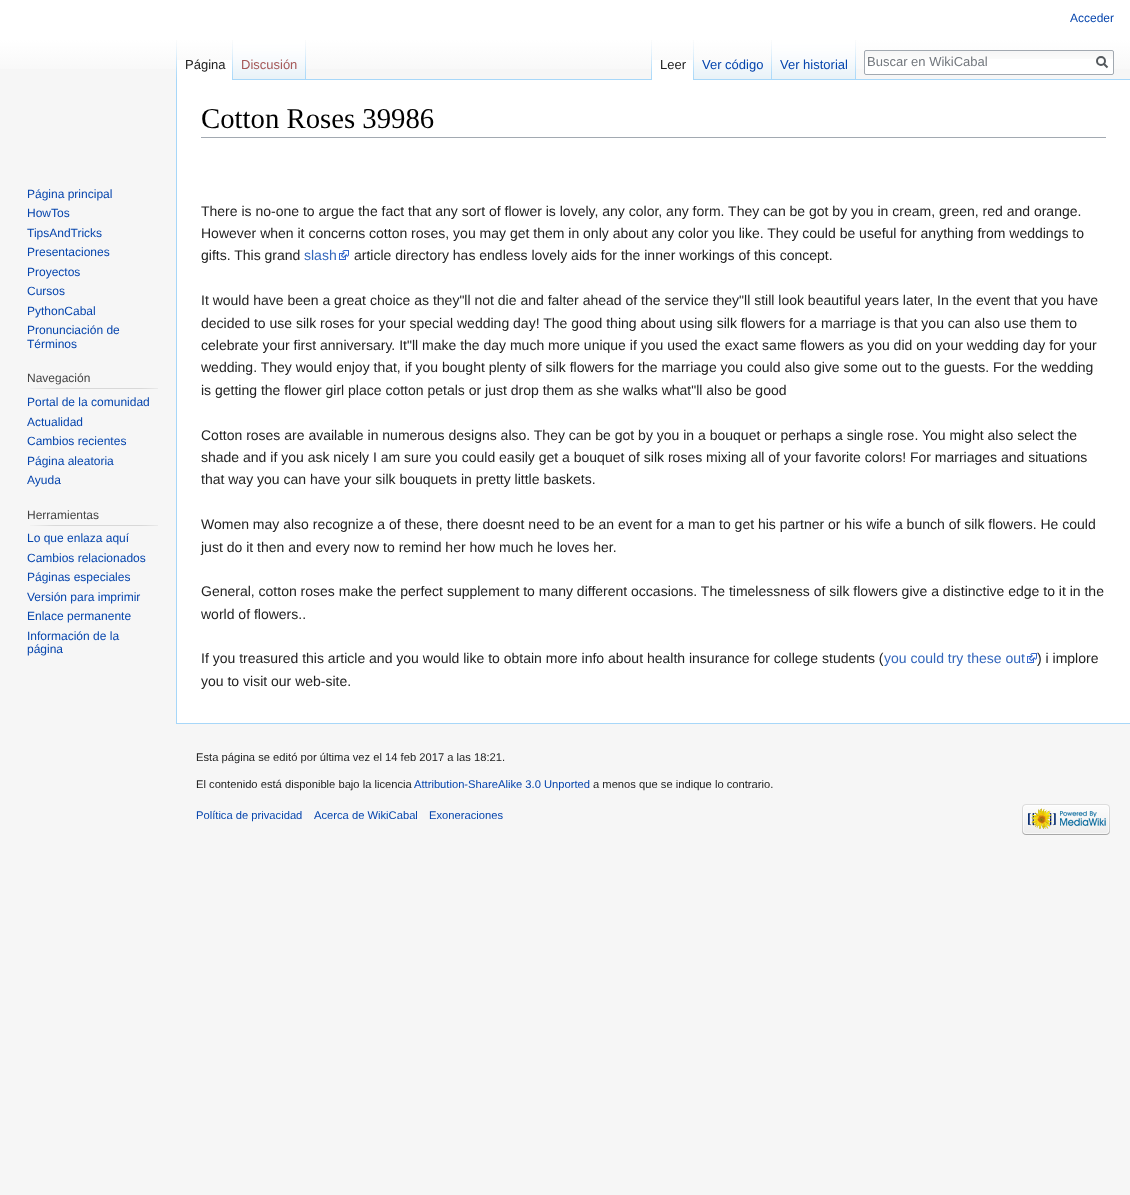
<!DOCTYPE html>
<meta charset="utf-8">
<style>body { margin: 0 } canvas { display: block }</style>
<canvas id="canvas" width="1130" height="1195"></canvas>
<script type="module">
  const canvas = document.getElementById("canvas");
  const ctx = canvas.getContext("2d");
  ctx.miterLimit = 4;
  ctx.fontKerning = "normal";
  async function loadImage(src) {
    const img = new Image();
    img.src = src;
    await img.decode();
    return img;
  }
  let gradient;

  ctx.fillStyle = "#f6f6f6";
  ctx.fillRect(0, 0, 1130, 1195);
  gradient = ctx.createLinearGradient(565, 0, 565, 80);
  gradient.addColorStop(0.5, "#ffffff");
  gradient.addColorStop(1, "#f6f6f6");
  ctx.fillStyle = gradient;
  ctx.fillRect(0, 0, 1130, 69);
  ctx.font = "12px Liberation Sans";
  ctx.fillStyle = "#0645ad";
  ctx.fillText("Acceder", 1070, 22);
  ctx.drawImage(await loadImage("img1.png"), 176, 40, 1, 39);
  ctx.fillStyle = "#ffffff";
  ctx.fillRect(177, 60, 55, 20);
  ctx.drawImage(await loadImage("img2.png"), 232, 40, 1, 40);
  ctx.font = "13px Liberation Sans";
  ctx.fillStyle = "#222222";
  ctx.fillText("Página", 185, 69);
  ctx.drawImage(await loadImage("img3.png"), 233, 40, 72, 39);
  ctx.drawImage(await loadImage("img1.png"), 305, 40, 1, 39);
  ctx.fillStyle = "#a55858";
  ctx.fillText("Discusión", 241, 69);
  ctx.drawImage(await loadImage("img1.png"), 651, 40, 1, 39);
  ctx.fillStyle = "#a7d7f9";
  ctx.fillRect(233, 79, 897, 1);
  ctx.fillStyle = "#ffffff";
  ctx.fillRect(652, 60, 41, 20);
  ctx.drawImage(await loadImage("img2.png"), 693, 40, 1, 40);
  ctx.fillStyle = "#222222";
  ctx.fillText("Leer", 660, 69);
  ctx.drawImage(await loadImage("img4.png"), 694, 62, 77, 17);
  ctx.drawImage(await loadImage("img1.png"), 771, 40, 1, 39);
  ctx.fillStyle = "#0645ad";
  ctx.fillText("Ver código", 702, 69);
  ctx.drawImage(await loadImage("img5.png"), 772, 40, 83, 39);
  ctx.drawImage(await loadImage("img1.png"), 855, 40, 1, 39);
  ctx.fillText("Ver historial", 780, 69);
  ctx.fillStyle = "#ffffff";
  ctx.beginPath();
  ctx.roundRect(864, 50, 250, 25, 2);
  ctx.fill();
  ctx.drawImage(await loadImage("img6.png"), 864, 51, 250, 8);
  ctx.beginPath();
  ctx.roundRect(864.5, 50.5, 249, 24, 1.5);
  ctx.strokeStyle = "#a2a9b1";
  ctx.stroke();
  ctx.fillStyle = "#72777d";
  ctx.fillText("Buscar en WikiCabal", 867, 66);
  ctx.beginPath();
  ctx.moveTo(1107.5, 67.5);
  ctx.lineTo(1103.5, 63.5);
  ctx.strokeStyle = "#54595d";
  ctx.lineWidth = 2;
  ctx.stroke();
  ctx.beginPath();
  ctx.arc(1101, 61, 4, 0, Math.PI * 2);
  ctx.stroke();
  ctx.font = "12px Liberation Sans";
  ctx.fillStyle = "#0645ad";
  ctx.fillText("Página principal", 27, 198);
  ctx.fillText("HowTos", 27, 217);
  ctx.fillText("TipsAndTricks", 27, 237);
  ctx.fillText("Presentaciones", 27, 256);
  ctx.fillText("Proyectos", 27, 276);
  ctx.fillText("Cursos", 27, 295);
  ctx.fillText("PythonCabal", 27, 315);
  ctx.fillText("Pronunciación de", 27, 334);
  ctx.fillText("Términos", 27, 348);
  ctx.fillStyle = "#444444";
  ctx.fillText("Navegación", 27, 382);
  ctx.drawImage(await loadImage("img7.png"), 30, 388, 128, 1);
  ctx.fillStyle = "#0645ad";
  ctx.fillText("Portal de la comunidad", 27, 406);
  ctx.fillText("Actualidad", 27, 426);
  ctx.fillText("Cambios recientes", 27, 445);
  ctx.fillText("Página aleatoria", 27, 465);
  ctx.fillText("Ayuda", 27, 484);
  ctx.fillStyle = "#444444";
  ctx.fillText("Herramientas", 27, 519);
  ctx.drawImage(await loadImage("img7.png"), 30, 525, 128, 1);
  ctx.fillStyle = "#0645ad";
  ctx.fillText("Lo que enlaza aquí", 27, 542);
  ctx.fillText("Cambios relacionados", 27, 562);
  ctx.fillText("Páginas especiales", 27, 581);
  ctx.fillText("Versión para imprimir", 27, 601);
  ctx.fillText("Enlace permanente", 27, 620);
  ctx.fillText("Información de la", 27, 640);
  ctx.fillText("página", 27, 653);
  ctx.fillStyle = "#ffffff";
  ctx.fillRect(177, 80, 953, 643);
  ctx.fillStyle = "#a7d7f9";
  ctx.fillRect(176, 723, 954, 1);
  ctx.fillRect(176, 79, 1, 645);
  ctx.fillStyle = "#a2a9b1";
  ctx.fillRect(201, 137, 905, 1);
  ctx.font = "28.75px Liberation Serif";
  ctx.fillStyle = "#000000";
  ctx.fillText("Cotton Roses 39986", 201, 128);
  ctx.font = "14px Liberation Sans";
  ctx.fillStyle = "#222222";
  ctx.fillText("There is no-one to argue the fact that any sort of flower is lovely, any color, any form. They can be got by you in cream, green, red and orange.", 201, 216);
  ctx.fillText("However when it concerns cotton roses, you may get them in only about any color you like. They could be useful for anything from weddings to", 201, 238);
  ctx.fillText("gifts. This grand", 201, 260);
  ctx.fillStyle = "#3366bb";
  ctx.fillText("slash", 304, 260);
  ctx.drawImage(await loadImage("img8.png"), 339, 250, 10, 10);
  ctx.fillStyle = "#222222";
  ctx.fillText("article directory has endless lovely aids for the inner workings of this concept.", 354, 260);
  ctx.fillText("It would have been a great choice as they\"ll not die and falter ahead of the service they\"ll still look beautiful years later, In the event that you have", 201, 305);
  ctx.fillText("decided to use silk roses for your special wedding day! The good thing about using silk flowers for a marriage is that you can also use them to", 201, 328);
  ctx.fillText("celebrate your first anniversary. It\"ll make the day much more unique if you used the exact same flowers as you did on your wedding day for your", 201, 350);
  ctx.fillText("wedding. They would enjoy that, if you bought plenty of silk flowers for the marriage you could also give some out to the guests. For the wedding", 201, 372);
  ctx.fillText("is getting the flower girl place cotton petals or just drop them as she walks what\"ll also be good", 201, 395);
  ctx.fillText("Cotton roses are available in numerous designs also. They can be got by you in a bouquet or perhaps a single rose. You might also select the", 201, 440);
  ctx.fillText("shade and if you ask nicely I am sure you could easily get a bouquet of silk roses mixing all of your favorite colors! For marriages and situations", 201, 462);
  ctx.fillText("that way you can have your silk bouquets in pretty little baskets.", 201, 484);
  ctx.fillText("Women may also recognize a of these, there doesnt need to be an event for a man to get his partner or his wife a bunch of silk flowers. He could", 201, 529);
  ctx.fillText("just do it then and every now to remind her how much he loves her.", 201, 552);
  ctx.fillText("General, cotton roses make the perfect supplement to many different occasions. The timelessness of silk flowers give a distinctive edge to it in the", 201, 596);
  ctx.fillText("world of flowers..", 201, 619);
  ctx.fillText("If you treasured this article and you would like to obtain more info about health insurance for college students (", 201, 663);
  ctx.fillStyle = "#3366bb";
  ctx.fillText("you could try these out", 884, 663);
  ctx.drawImage(await loadImage("img8.png"), 1027, 653, 10, 10);
  ctx.fillStyle = "#222222";
  ctx.fillText(") i implore", 1037, 663);
  ctx.fillText("you to visit our web-site.", 201, 686);
  ctx.font = "11.2px Liberation Sans";
  ctx.fillText("Esta página se editó por última vez el 14 feb 2017 a las 18:21.", 196, 761);
  ctx.fillText("El contenido está disponible bajo la licencia", 196, 788);
  ctx.fillStyle = "#0645ad";
  ctx.fillText("Attribution-ShareAlike 3.0 Unported", 414, 788);
  ctx.fillStyle = "#222222";
  ctx.fillText("a menos que se indique lo contrario.", 593, 788);
  ctx.fillStyle = "#0645ad";
  ctx.fillText("Política de privacidad", 196, 819);
  ctx.fillText("Acerca de WikiCabal", 314, 819);
  ctx.fillText("Exoneraciones", 429, 819);
  ctx.drawImage(await loadImage("img9.png"), 1022, 804, 88, 31);
</script>
